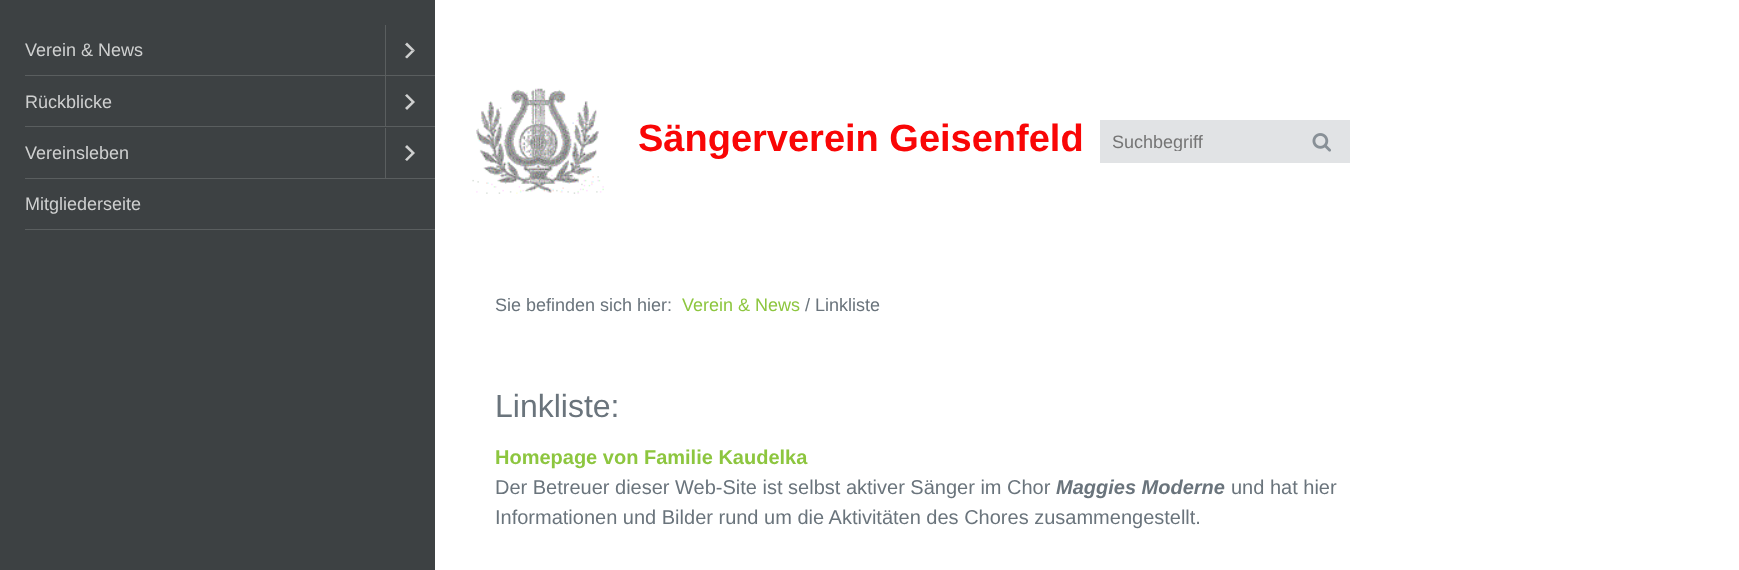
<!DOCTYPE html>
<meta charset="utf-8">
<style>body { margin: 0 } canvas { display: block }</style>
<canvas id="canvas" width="1739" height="570"></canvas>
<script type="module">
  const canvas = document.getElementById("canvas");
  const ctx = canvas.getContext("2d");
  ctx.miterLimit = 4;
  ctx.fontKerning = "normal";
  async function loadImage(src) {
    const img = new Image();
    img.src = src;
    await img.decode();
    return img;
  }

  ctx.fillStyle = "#ffffff";
  ctx.fillRect(0, 0, 1739, 570);
  ctx.fillStyle = "#3d4143";
  ctx.fillRect(0, 0, 435, 570);
  ctx.font = "18px Liberation Sans";
  ctx.fillStyle = "#cfd0d0";
  ctx.fillText("Verein & News", 25, 56);
  ctx.fillStyle = "#5a5e5f";
  ctx.fillRect(385, 25, 1, 50);
  ctx.fillStyle = "#cfd0d0";
  ctx.beginPath();
  ctx.moveTo(407, 42.5);
  ctx.lineTo(415, 50.5);
  ctx.lineTo(411.5, 50.5);
  ctx.lineTo(405, 44.5);
  ctx.closePath();
  ctx.fill();
  ctx.beginPath();
  ctx.moveTo(415, 50.5);
  ctx.lineTo(407, 58.5);
  ctx.lineTo(405, 57);
  ctx.lineTo(411.5, 50.5);
  ctx.closePath();
  ctx.fill();
  ctx.fillStyle = "#5a5e5f";
  ctx.fillRect(25, 75, 410, 1);
  ctx.fillStyle = "#cfd0d0";
  ctx.fillText("Rückblicke", 25, 108);
  ctx.fillStyle = "#5a5e5f";
  ctx.fillRect(385, 76, 1, 50);
  ctx.fillStyle = "#cfd0d0";
  ctx.beginPath();
  ctx.moveTo(407, 94);
  ctx.lineTo(415, 102);
  ctx.lineTo(411.5, 102);
  ctx.lineTo(405, 95.5);
  ctx.closePath();
  ctx.moveTo(415, 102);
  ctx.lineTo(407, 110);
  ctx.lineTo(405, 108);
  ctx.lineTo(411.5, 102);
  ctx.closePath();
  ctx.fill();
  ctx.fillStyle = "#5a5e5f";
  ctx.fillRect(25, 126, 410, 1);
  ctx.fillStyle = "#cfd0d0";
  ctx.fillText("Vereinsleben", 25, 159);
  ctx.fillStyle = "#5a5e5f";
  ctx.fillRect(385, 128, 1, 50);
  ctx.fillStyle = "#cfd0d0";
  ctx.beginPath();
  ctx.moveTo(407, 145);
  ctx.lineTo(415, 153);
  ctx.lineTo(411.5, 153);
  ctx.lineTo(405, 147);
  ctx.closePath();
  ctx.moveTo(415, 153);
  ctx.lineTo(407, 161);
  ctx.lineTo(405, 159.5);
  ctx.lineTo(411.5, 153);
  ctx.closePath();
  ctx.fill();
  ctx.fillStyle = "#5a5e5f";
  ctx.fillRect(25, 178, 410, 1);
  ctx.fillStyle = "#cfd0d0";
  ctx.fillText("Mitgliederseite", 25, 210);
  ctx.fillStyle = "#5a5e5f";
  ctx.fillRect(25, 229, 410, 1);
  ctx.drawImage(await loadImage("img1.png"), 472, 88, 132, 106);
  ctx.font = "bold 38px Liberation Sans";
  ctx.fillStyle = "#f90606";
  ctx.fillText("Sängerverein Geisenfeld", 638, 151);
  ctx.fillStyle = "#e1e3e5";
  ctx.fillRect(1100, 120, 250, 43);
  ctx.save();
  ctx.beginPath();
  ctx.rect(1113, 131, 195, 20);
  ctx.clip();
  ctx.font = "18px Liberation Sans";
  ctx.fillStyle = "#757575";
  ctx.fillText("Suchbegriff", 1112, 148);
  ctx.restore();
  ctx.drawImage(await loadImage("img2.png"), 1312, 133, 19, 19);
  ctx.font = "18px Liberation Sans";
  ctx.fillStyle = "#6a747c";
  ctx.fillText("Sie befinden sich hier:", 495, 311);
  ctx.fillStyle = "#8dc63f";
  ctx.fillText("Verein & News", 682, 311);
  ctx.fillStyle = "#6a747c";
  ctx.fillText("/ Linkliste", 805, 311);
  ctx.font = "32px Liberation Sans";
  ctx.fillText("Linkliste:", 495, 417);
  ctx.font = "bold 20px Liberation Sans";
  ctx.fillStyle = "#8dc63f";
  ctx.fillText("Homepage von Familie Kaudelka", 495, 464);
  ctx.font = "20px Liberation Sans";
  ctx.fillStyle = "#6a747c";
  ctx.fillText("Der Betreuer dieser Web-Site ist selbst aktiver Sänger im Chor", 495, 494);
  ctx.font = "italic bold 20px Liberation Sans";
  ctx.fillText("Maggies Moderne", 1056, 494);
  ctx.font = "20px Liberation Sans";
  ctx.fillText("und hat hier", 1231, 494);
  ctx.fillText("Informationen und Bilder rund um die Aktivitäten des Chores zusammengestellt.", 495, 524);
</script>
